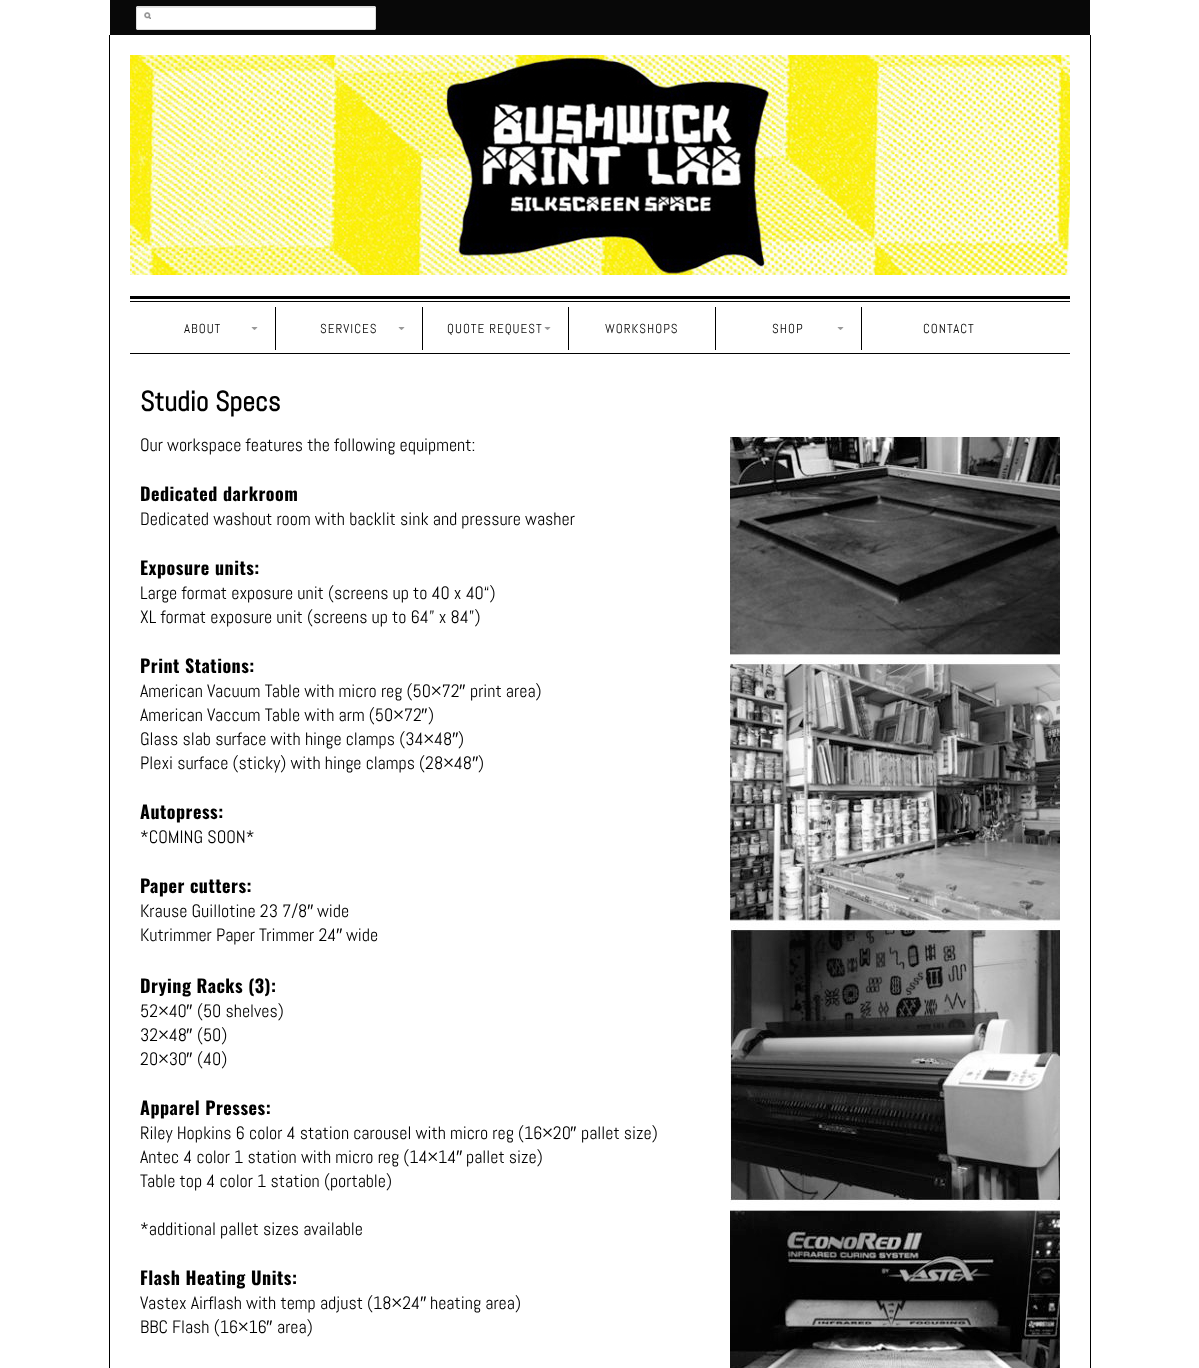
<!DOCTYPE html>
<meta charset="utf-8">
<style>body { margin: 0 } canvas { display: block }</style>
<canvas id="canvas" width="1199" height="1368"></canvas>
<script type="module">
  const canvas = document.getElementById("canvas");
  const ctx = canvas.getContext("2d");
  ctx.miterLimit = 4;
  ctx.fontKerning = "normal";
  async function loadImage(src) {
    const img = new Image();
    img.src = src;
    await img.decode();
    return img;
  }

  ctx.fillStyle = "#ffffff";
  ctx.fillRect(0, 0, 1199, 1368);
  ctx.fillStyle = "#080808";
  ctx.fillRect(110, 0, 980, 35);
  ctx.fillStyle = "#ffffff";
  ctx.beginPath();
  ctx.roundRect(136, 6, 240, 24, 2);
  ctx.fill();
  ctx.drawImage(await loadImage("img1.png"), 144, 12, 7, 7);
  ctx.fillStyle = "#e6e6e6";
  ctx.beginPath();
  ctx.moveTo(138, 8);
  ctx.lineTo(375, 8);
  ctx.lineTo(375, 9);
  ctx.bezierCurveTo(375, 8, 375, 7, 374, 7);
  ctx.lineTo(137, 7);
  ctx.lineTo(137, 9);
  ctx.bezierCurveTo(137, 8, 137, 8, 138, 8);
  ctx.closePath();
  ctx.fill();
  ctx.beginPath();
  ctx.roundRect(136.5, 6.5, 239, 23, 1.5);
  ctx.strokeStyle = "#dddddd";
  ctx.stroke();
  ctx.fillStyle = "#000000";
  ctx.fillRect(1090, 35, 1, 1333);
  ctx.fillRect(109, 35, 1, 1333);
  ctx.drawImage(await loadImage("img2.png"), 130, 55, 940, 220);
  ctx.drawImage(await loadImage("img3.png"), 130, 296, 940, 6);
  ctx.fillRect(130, 353, 940, 1);
  ctx.fillRect(275, 307, 1, 43);
  ctx.drawImage(await loadImage("img4.png"), 251, 327, 7, 3);
  ctx.letterSpacing = "1px";
  ctx.font = "13px Abel";
  ctx.fillStyle = "#080808";
  ctx.fillText("ABOUT", 184, 333);
  ctx.fillStyle = "#000000";
  ctx.fillRect(422, 307, 1, 43);
  ctx.drawImage(await loadImage("img4.png"), 398, 327, 7, 3);
  ctx.fillStyle = "#080808";
  ctx.fillText("SERVICES", 320, 333);
  ctx.fillStyle = "#000000";
  ctx.fillRect(568, 307, 1, 43);
  ctx.drawImage(await loadImage("img4.png"), 544, 327, 7, 3);
  ctx.fillStyle = "#080808";
  ctx.fillText("QUOTE REQUEST", 447, 333);
  ctx.fillStyle = "#000000";
  ctx.fillRect(715, 307, 1, 43);
  ctx.fillStyle = "#080808";
  ctx.fillText("WORKSHOPS", 605, 333);
  ctx.fillStyle = "#000000";
  ctx.fillRect(861, 307, 1, 43);
  ctx.drawImage(await loadImage("img4.png"), 837, 327, 7, 3);
  ctx.fillStyle = "#080808";
  ctx.fillText("SHOP", 772, 333);
  ctx.fillText("CONTACT", 923, 333);
  ctx.letterSpacing = "0px";
  ctx.font = "bold 28px Abel";
  ctx.fillStyle = "#000000";
  ctx.fillText("Studio Specs", 140, 411);
  ctx.font = "18px Abel";
  ctx.fillText("Our workspace features the following equipment:", 140, 451);
  ctx.drawImage(await loadImage("img5.png"), 730, 437, 330, 931);
  ctx.letterSpacing = "0.5px";
  ctx.font = "bold 18px Oswald";
  ctx.fillText("Dedicated darkroom", 140, 501);
  ctx.letterSpacing = "0px";
  ctx.font = "18px Abel";
  ctx.fillText("Dedicated washout room with backlit sink and pressure washer", 140, 525);
  ctx.letterSpacing = "0.5px";
  ctx.font = "bold 18px Oswald";
  ctx.fillText("Exposure units:", 140, 575);
  ctx.letterSpacing = "0px";
  ctx.font = "18px Abel";
  ctx.fillText("Large format exposure unit (screens up to 40 x 40“)", 140, 599);
  ctx.fillText("XL format exposure unit (screens up to 64” x 84”)", 140, 623);
  ctx.letterSpacing = "0.5px";
  ctx.font = "bold 18px Oswald";
  ctx.fillText("Print Stations:", 140, 673);
  ctx.letterSpacing = "0px";
  ctx.font = "18px Abel";
  ctx.fillText("American Vacuum Table with micro reg (50×72", 140, 697);
  ctx.font = "18px Liberation Sans";
  ctx.fillText("″", 459, 697);
  ctx.font = "18px Abel";
  ctx.fillText("print area)", 470, 697);
  ctx.fillText("American Vaccum Table with arm (50×72", 140, 721);
  ctx.font = "18px Liberation Sans";
  ctx.fillText("″", 421, 721);
  ctx.font = "18px Abel";
  ctx.fillText(")", 428, 721);
  ctx.fillText("Glass slab surface with hinge clamps (34×48", 140, 745);
  ctx.font = "18px Liberation Sans";
  ctx.fillText("″", 452, 745);
  ctx.font = "18px Abel";
  ctx.fillText(")", 458, 745);
  ctx.fillText("Plexi surface (sticky) with hinge clamps (28×48", 140, 769);
  ctx.font = "18px Liberation Sans";
  ctx.fillText("″", 472, 769);
  ctx.font = "18px Abel";
  ctx.fillText(")", 478, 769);
  ctx.letterSpacing = "0.5px";
  ctx.font = "bold 18px Oswald";
  ctx.fillText("Autopress:", 140, 819);
  ctx.letterSpacing = "0px";
  ctx.font = "18px Abel";
  ctx.fillText("*COMING SOON*", 140, 843);
  ctx.letterSpacing = "0.5px";
  ctx.font = "bold 18px Oswald";
  ctx.fillText("Paper cutters:", 140, 893);
  ctx.letterSpacing = "0px";
  ctx.font = "18px Abel";
  ctx.fillText("Krause Guillotine 23 7/8", 140, 917);
  ctx.font = "18px Liberation Sans";
  ctx.fillText("″", 307, 917);
  ctx.font = "18px Abel";
  ctx.fillText("wide", 317, 917);
  ctx.fillText("Kutrimmer Paper Trimmer 24", 140, 941);
  ctx.font = "18px Liberation Sans";
  ctx.fillText("″", 336, 941);
  ctx.font = "18px Abel";
  ctx.fillText("wide", 346, 941);
  ctx.letterSpacing = "0.5px";
  ctx.font = "bold 18px Oswald";
  ctx.fillText("Drying Racks (3):", 140, 993);
  ctx.letterSpacing = "0px";
  ctx.font = "18px Abel";
  ctx.fillText("52×40", 140, 1017);
  ctx.font = "18px Liberation Sans";
  ctx.fillText("″", 186, 1017);
  ctx.font = "18px Abel";
  ctx.fillText("(50 shelves)", 197, 1017);
  ctx.fillText("32×48", 140, 1041);
  ctx.font = "18px Liberation Sans";
  ctx.fillText("″", 186, 1041);
  ctx.font = "18px Abel";
  ctx.fillText("(50)", 197, 1041);
  ctx.fillText("20×30", 140, 1065);
  ctx.font = "18px Liberation Sans";
  ctx.fillText("″", 186, 1065);
  ctx.font = "18px Abel";
  ctx.fillText("(40)", 197, 1065);
  ctx.letterSpacing = "0.5px";
  ctx.font = "bold 18px Oswald";
  ctx.fillText("Apparel Presses:", 140, 1115);
  ctx.letterSpacing = "0px";
  ctx.font = "18px Abel";
  ctx.fillText("Riley Hopkins 6 color 4 station carousel with micro reg (16×20", 140, 1139);
  ctx.font = "18px Liberation Sans";
  ctx.fillText("″", 570, 1139);
  ctx.font = "18px Abel";
  ctx.fillText("pallet size)", 581, 1139);
  ctx.fillText("Antec 4 color 1 station with micro reg (14×14", 140, 1163);
  ctx.font = "18px Liberation Sans";
  ctx.fillText("″", 456, 1163);
  ctx.font = "18px Abel";
  ctx.fillText("pallet size)", 466, 1163);
  ctx.fillText("Table top 4 color 1 station (portable)", 140, 1187);
  ctx.fillText("*additional pallet sizes available", 140, 1235);
  ctx.letterSpacing = "0.5px";
  ctx.font = "bold 18px Oswald";
  ctx.fillText("Flash Heating Units:", 140, 1285);
  ctx.letterSpacing = "0px";
  ctx.font = "18px Abel";
  ctx.fillText("Vastex Airflash with temp adjust (18×24", 140, 1309);
  ctx.font = "18px Liberation Sans";
  ctx.fillText("″", 420, 1309);
  ctx.font = "18px Abel";
  ctx.fillText("heating area)", 430, 1309);
  ctx.fillText("BBC Flash (16×16", 140, 1333);
  ctx.font = "18px Liberation Sans";
  ctx.fillText("″", 266, 1333);
  ctx.font = "18px Abel";
  ctx.fillText("area)", 277, 1333);
</script>
